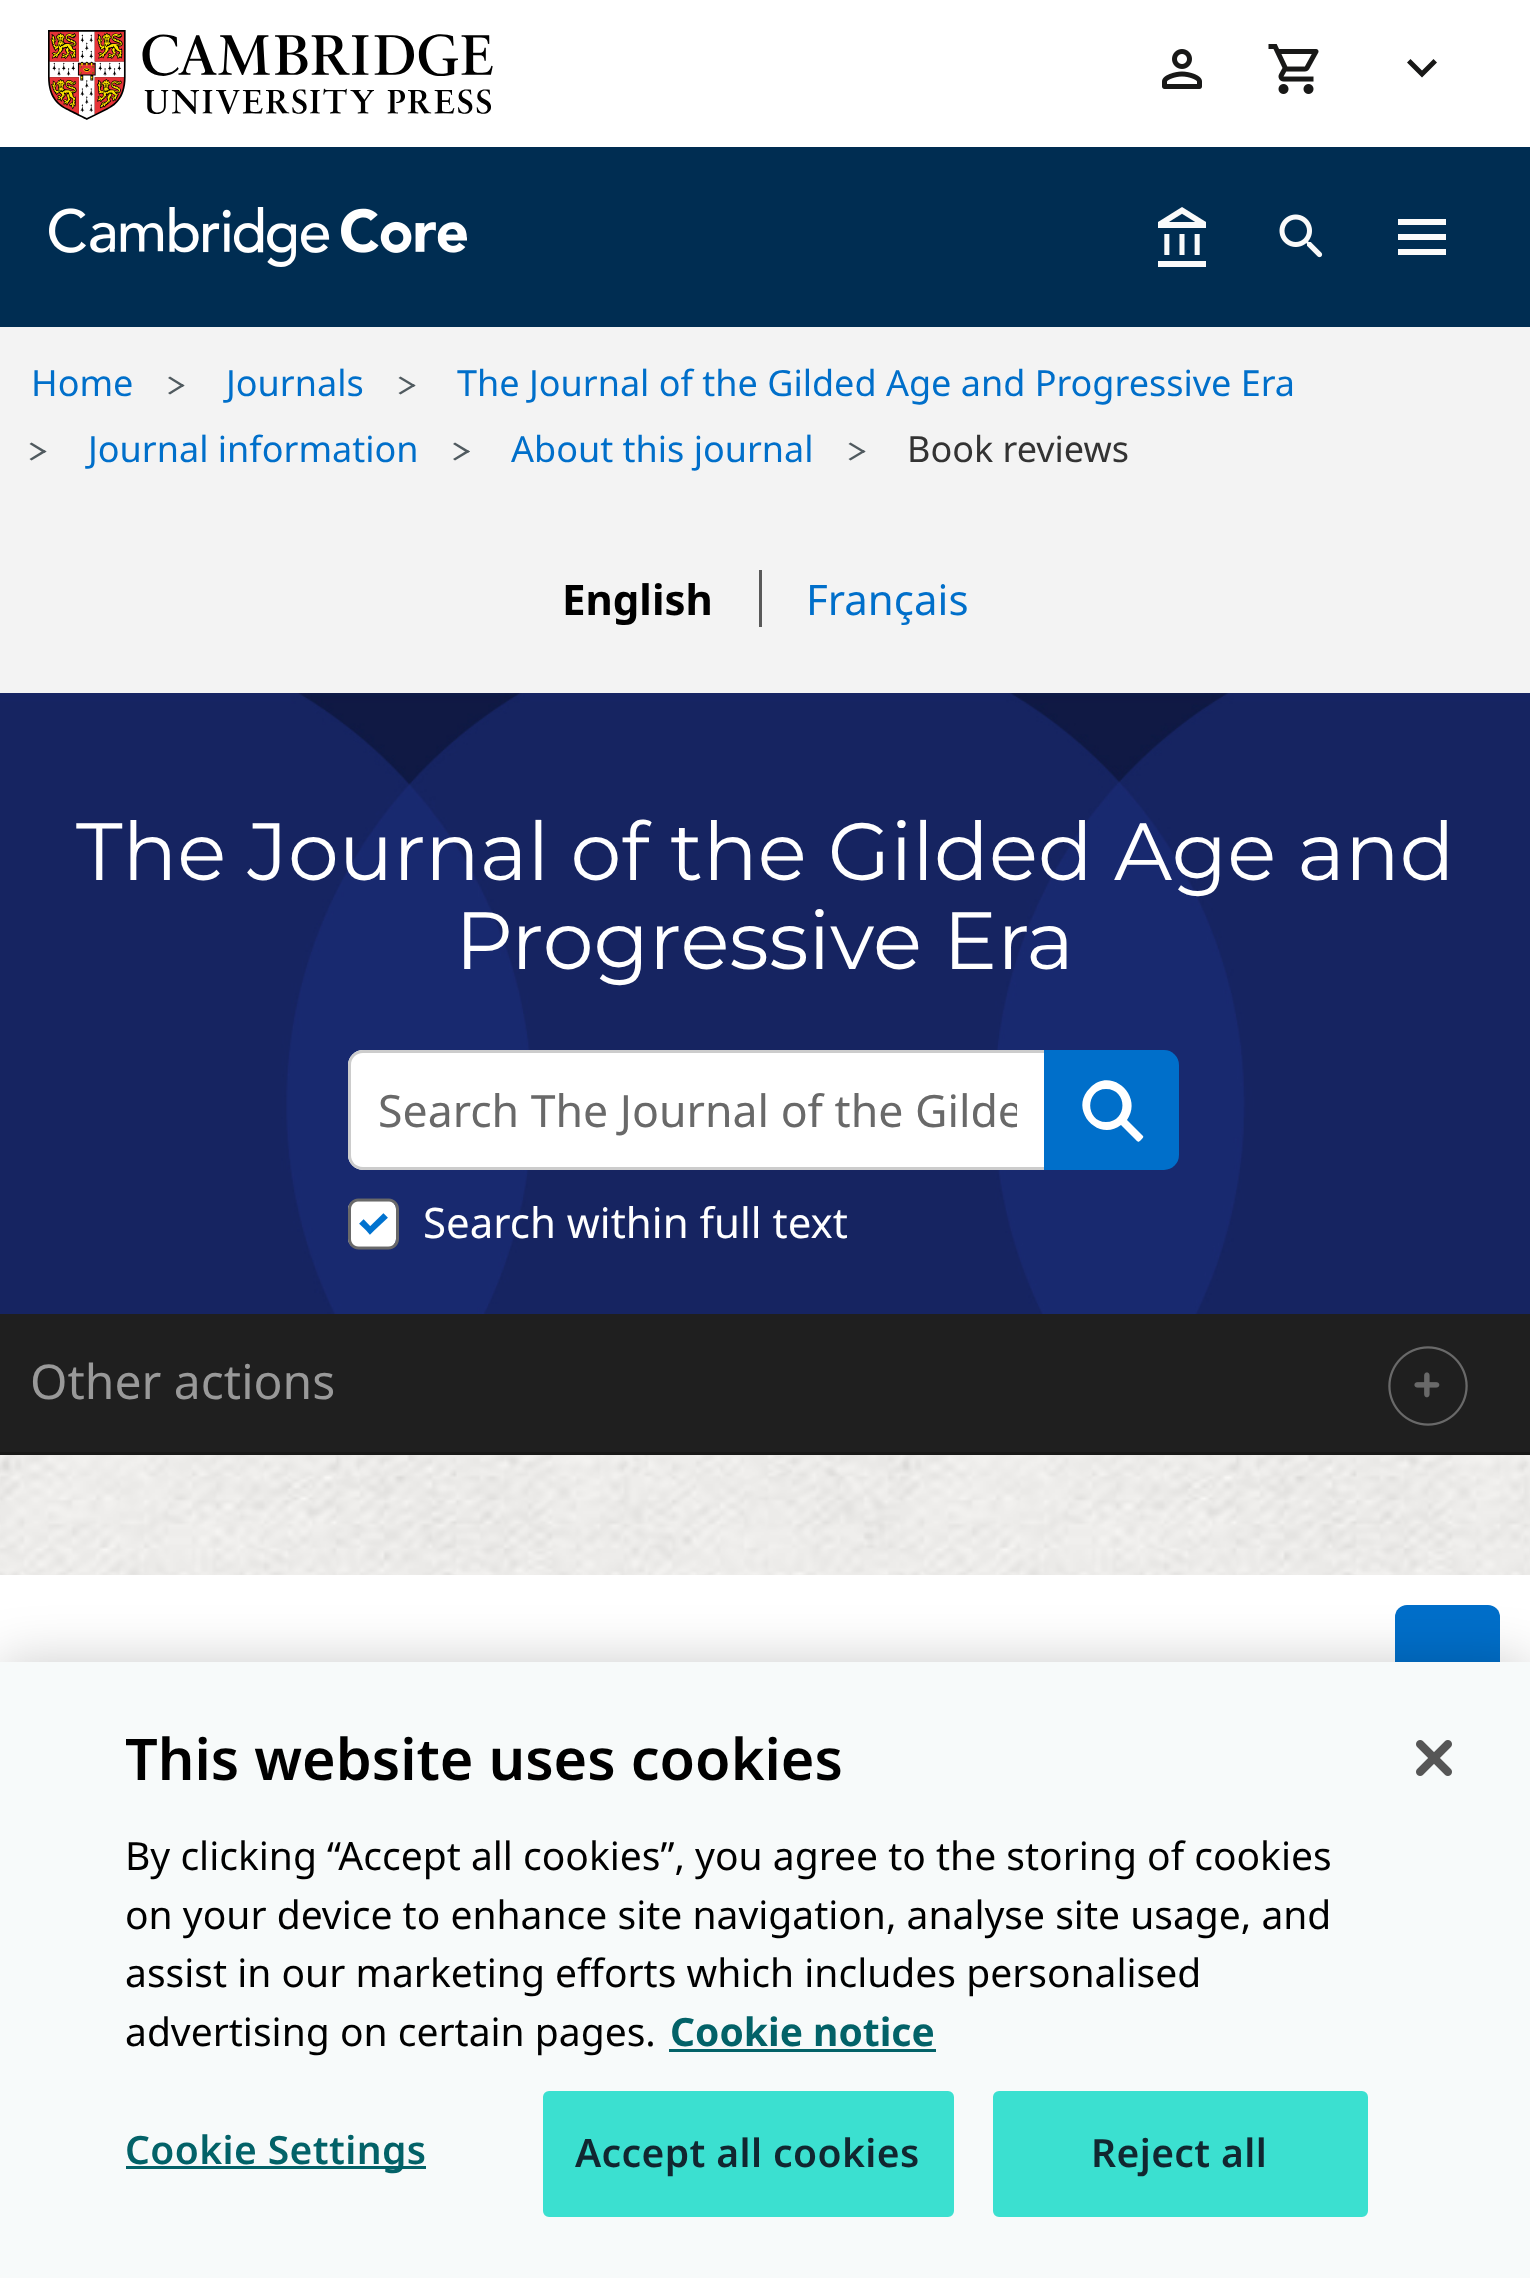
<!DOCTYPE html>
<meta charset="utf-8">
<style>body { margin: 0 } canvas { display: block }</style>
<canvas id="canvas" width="1530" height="2278"></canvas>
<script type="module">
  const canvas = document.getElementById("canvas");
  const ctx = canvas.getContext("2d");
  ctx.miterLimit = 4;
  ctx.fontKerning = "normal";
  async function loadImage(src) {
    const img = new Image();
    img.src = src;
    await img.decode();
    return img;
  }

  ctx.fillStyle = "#ffffff";
  ctx.fillRect(0, 0, 1530, 2278);
  ctx.drawImage(await loadImage("img1.png"), 0, 1455, 1530, 120);
  ctx.drawImage(await loadImage("img2.png"), 48, 30, 445, 90);
  ctx.drawImage(await loadImage("img3.png"), 1162, 49, 40, 40);
  ctx.drawImage(await loadImage("img4.png"), 1268, 44, 51, 50);
  ctx.fillStyle = "#181817";
  ctx.beginPath();
  ctx.moveTo(1422, 77.5);
  ctx.lineTo(1407, 62.5);
  ctx.lineTo(1410.5, 59);
  ctx.lineTo(1422, 70.5);
  ctx.lineTo(1433.5, 59);
  ctx.lineTo(1437, 62.5);
  ctx.closePath();
  ctx.fill();
  ctx.fillStyle = "#002d52";
  ctx.fillRect(0, 147, 1530, 180);
  ctx.drawImage(await loadImage("img5.png"), 49, 207, 418, 60);
  ctx.drawImage(await loadImage("img6.png"), 1158, 207, 48, 60);
  ctx.drawImage(await loadImage("img7.png"), 1279, 214, 44, 44);
  ctx.fillStyle = "#fafafa";
  ctx.fillRect(1398, 219, 48, 6);
  ctx.fillRect(1398, 234, 48, 6);
  ctx.fillRect(1398, 249, 48, 6);
  ctx.fillStyle = "#f3f3f3";
  ctx.fillRect(0, 327, 1530, 366);
  ctx.font = "36px Noto Sans";
  ctx.fillStyle = "#006fca";
  ctx.fillText("Home", 31, 396);
  ctx.fillStyle = "#505a5f";
  ctx.beginPath();
  ctx.moveTo(170, 376.5);
  ctx.lineTo(184.5, 385.5);
  ctx.lineTo(182.5, 387);
  ctx.lineTo(168, 378);
  ctx.closePath();
  ctx.fill();
  ctx.beginPath();
  ctx.moveTo(182.5, 384);
  ctx.lineTo(184.5, 385.5);
  ctx.lineTo(170, 394.5);
  ctx.lineTo(168, 393);
  ctx.closePath();
  ctx.fill();
  ctx.fillStyle = "#006fca";
  ctx.fillText("Journals", 226, 396);
  ctx.fillStyle = "#505a5f";
  ctx.beginPath();
  ctx.moveTo(400.5, 376.5);
  ctx.lineTo(415.5, 385.5);
  ctx.lineTo(413.5, 387);
  ctx.lineTo(398.5, 378);
  ctx.closePath();
  ctx.fill();
  ctx.beginPath();
  ctx.moveTo(413.5, 384);
  ctx.lineTo(415.5, 385.5);
  ctx.lineTo(400.5, 394.5);
  ctx.lineTo(398.5, 393);
  ctx.closePath();
  ctx.fill();
  ctx.fillStyle = "#006fca";
  ctx.fillText("The Journal of the Gilded Age and Progressive Era", 457, 396);
  ctx.fillStyle = "#505a5f";
  ctx.beginPath();
  ctx.moveTo(31.5, 442.5);
  ctx.lineTo(46.5, 451.5);
  ctx.lineTo(44, 453);
  ctx.lineTo(29.5, 444);
  ctx.closePath();
  ctx.fill();
  ctx.beginPath();
  ctx.moveTo(44, 450);
  ctx.lineTo(46.5, 451.5);
  ctx.lineTo(31.5, 460.5);
  ctx.lineTo(29.5, 459);
  ctx.closePath();
  ctx.fill();
  ctx.fillStyle = "#006fca";
  ctx.fillText("Journal information", 88, 462);
  ctx.fillStyle = "#505a5f";
  ctx.beginPath();
  ctx.moveTo(455, 442.5);
  ctx.lineTo(470, 451.5);
  ctx.lineTo(467.5, 453);
  ctx.lineTo(453, 444);
  ctx.closePath();
  ctx.fill();
  ctx.beginPath();
  ctx.moveTo(467.5, 450);
  ctx.lineTo(470, 451.5);
  ctx.lineTo(455, 460.5);
  ctx.lineTo(453, 459);
  ctx.closePath();
  ctx.fill();
  ctx.fillStyle = "#006fca";
  ctx.fillText("About this journal", 511, 462);
  ctx.fillStyle = "#505a5f";
  ctx.beginPath();
  ctx.moveTo(850.5, 442.5);
  ctx.lineTo(865.5, 451.5);
  ctx.lineTo(863.5, 453);
  ctx.lineTo(848.5, 444);
  ctx.closePath();
  ctx.fill();
  ctx.beginPath();
  ctx.moveTo(863.5, 450);
  ctx.lineTo(865.5, 451.5);
  ctx.lineTo(850.5, 460.5);
  ctx.lineTo(848.5, 459);
  ctx.closePath();
  ctx.fill();
  ctx.fillStyle = "#333333";
  ctx.fillText("Book reviews", 907, 462);
  ctx.font = "bold 42px Noto Sans";
  ctx.fillStyle = "#000000";
  ctx.fillText("English", 562, 615);
  ctx.font = "42px Noto Sans";
  ctx.fillStyle = "#006fca";
  ctx.fillText("Français", 806, 615);
  ctx.fillStyle = "#595959";
  ctx.fillRect(759, 570, 3, 57);
  ctx.drawImage(await loadImage("img8.png"), 0, 693, 1530, 621);
  ctx.font = "100 81px Montserrat";
  ctx.fillStyle = "#ffffff";
  ctx.fillText("The Journal of the Gilded Age and", 76, 880);
  ctx.fillText("Progressive Era", 455, 969);
  ctx.beginPath();
  ctx.roundRect(348, 1050, 696, 120, [15, 0, 0, 15]);
  ctx.fill();
  ctx.fillStyle = "#cccccc";
  ctx.beginPath();
  ctx.moveTo(363, 1050);
  ctx.lineTo(1044, 1050);
  ctx.lineTo(1044, 1170);
  ctx.lineTo(363, 1170);
  ctx.bezierCurveTo(355, 1170, 348, 1163, 348, 1155);
  ctx.lineTo(348, 1065);
  ctx.bezierCurveTo(348, 1057, 355, 1050, 363, 1050);
  ctx.closePath();
  ctx.moveTo(363, 1053);
  ctx.lineTo(1044, 1053);
  ctx.lineTo(1044, 1167);
  ctx.lineTo(363, 1167);
  ctx.bezierCurveTo(356, 1167, 351, 1162, 351, 1155);
  ctx.lineTo(351, 1065);
  ctx.bezierCurveTo(351, 1058, 356, 1053, 363, 1053);
  ctx.closePath();
  ctx.fill("evenodd");
  ctx.save();
  ctx.beginPath();
  ctx.rect(378, 1080, 639, 60);
  ctx.clip();
  ctx.font = "44.6px Noto Sans";
  ctx.fillStyle = "#696969";
  ctx.fillText("Search The Journal of the Gilde", 378, 1127);
  ctx.restore();
  ctx.fillStyle = "#ffffff";
  ctx.beginPath();
  ctx.roundRect(348, 1200, 48, 48, 9);
  ctx.fill();
  ctx.drawImage(await loadImage("img9.png"), 348, 1198, 51, 52);
  ctx.font = "42px Noto Sans";
  ctx.fillText("Search within full text", 423, 1238);
  ctx.fillStyle = "#006fca";
  ctx.beginPath();
  ctx.roundRect(1044, 1050, 135, 120, [0, 15, 15, 0]);
  ctx.fill();
  ctx.fillStyle = "#ffffff";
  ctx.beginPath();
  ctx.moveTo(1143, 1136);
  ctx.bezierCurveTo(1144, 1137, 1142, 1139, 1141, 1140);
  ctx.bezierCurveTo(1138, 1143, 1138, 1142, 1135, 1139);
  ctx.lineTo(1121, 1125);
  ctx.bezierCurveTo(1098, 1143, 1068, 1109, 1090, 1088);
  ctx.bezierCurveTo(1111, 1066, 1144, 1096, 1127, 1120);
  ctx.closePath();
  ctx.moveTo(1106, 1089);
  ctx.bezierCurveTo(1085, 1089, 1085, 1122, 1106, 1122);
  ctx.bezierCurveTo(1128, 1122, 1128, 1089, 1106, 1089);
  ctx.closePath();
  ctx.fill();
  ctx.fillStyle = "#1f1f1f";
  ctx.fillRect(0, 1314, 1530, 138);
  ctx.fillStyle = "#181817";
  ctx.fillRect(0, 1452, 1530, 3);
  ctx.font = "48px Noto Sans";
  ctx.fillStyle = "#999999";
  ctx.fillText("Other actions", 30, 1399);
  ctx.drawImage(await loadImage("img10.png"), 1388, 1346, 80, 80);
  ctx.fillStyle = "#006fca";
  ctx.beginPath();
  ctx.roundRect(1395, 1605, 105, 105, 12);
  ctx.fill();
  ctx.fillStyle = "rgba(0, 0, 0, 0.2)";
  ctx.filter = "blur(27px)";
  ctx.beginPath();
  ctx.rect(0, 1662, 1530, 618);
  ctx.fill();
  ctx.filter = "none";
  ctx.fillStyle = "#f7fafa";
  ctx.fillRect(0, 1662, 1530, 616);
  ctx.save();
  ctx.beginPath();
  ctx.rect(126, 1722, 1212, 339);
  ctx.clip();
  ctx.font = "600 57.6px Noto Sans";
  ctx.fillStyle = "#000000";
  ctx.fillText("This website uses cookies", 125, 1780);
  ctx.restore();
  ctx.font = "39px Noto Sans";
  ctx.fillStyle = "#000000";
  ctx.fillText("By clicking “Accept all cookies”, you agree to the storing of cookies", 125, 1870);
  ctx.fillText("on your device to enhance site navigation, analyse site usage, and", 125, 1929);
  ctx.fillText("assist in our marketing efforts which includes personalised", 125, 1987);
  ctx.fillText("advertising on certain pages.", 125, 2046);
  ctx.font = "bold 39px Noto Sans";
  ctx.fillStyle = "#036268";
  ctx.fillText("Cookie notice", 670, 2046);
  ctx.fillRect(669, 2049, 267, 3);
  ctx.fillRect(126, 2166, 300, 3);
  ctx.letterSpacing = "0.4px";
  ctx.font = "600 39px Noto Sans";
  ctx.fillText("Cookie Settings", 125, 2164);
  ctx.fillStyle = "#3be0d0";
  ctx.beginPath();
  ctx.roundRect(544.5, 2092.5, 408, 123, 4.5);
  ctx.fill();
  ctx.strokeStyle = "#3be0d0";
  ctx.lineWidth = 3;
  ctx.stroke();
  ctx.fillStyle = "#112730";
  ctx.fillText("Accept all cookies", 575, 2167);
  ctx.fillStyle = "#3be0d0";
  ctx.beginPath();
  ctx.roundRect(994.5, 2092.5, 372, 123, 4.5);
  ctx.fill();
  ctx.stroke();
  ctx.fillStyle = "#112730";
  ctx.fillText("Reject all", 1091, 2167);
  ctx.drawImage(await loadImage("img11.png"), 1416, 1740, 36, 36);
</script>
